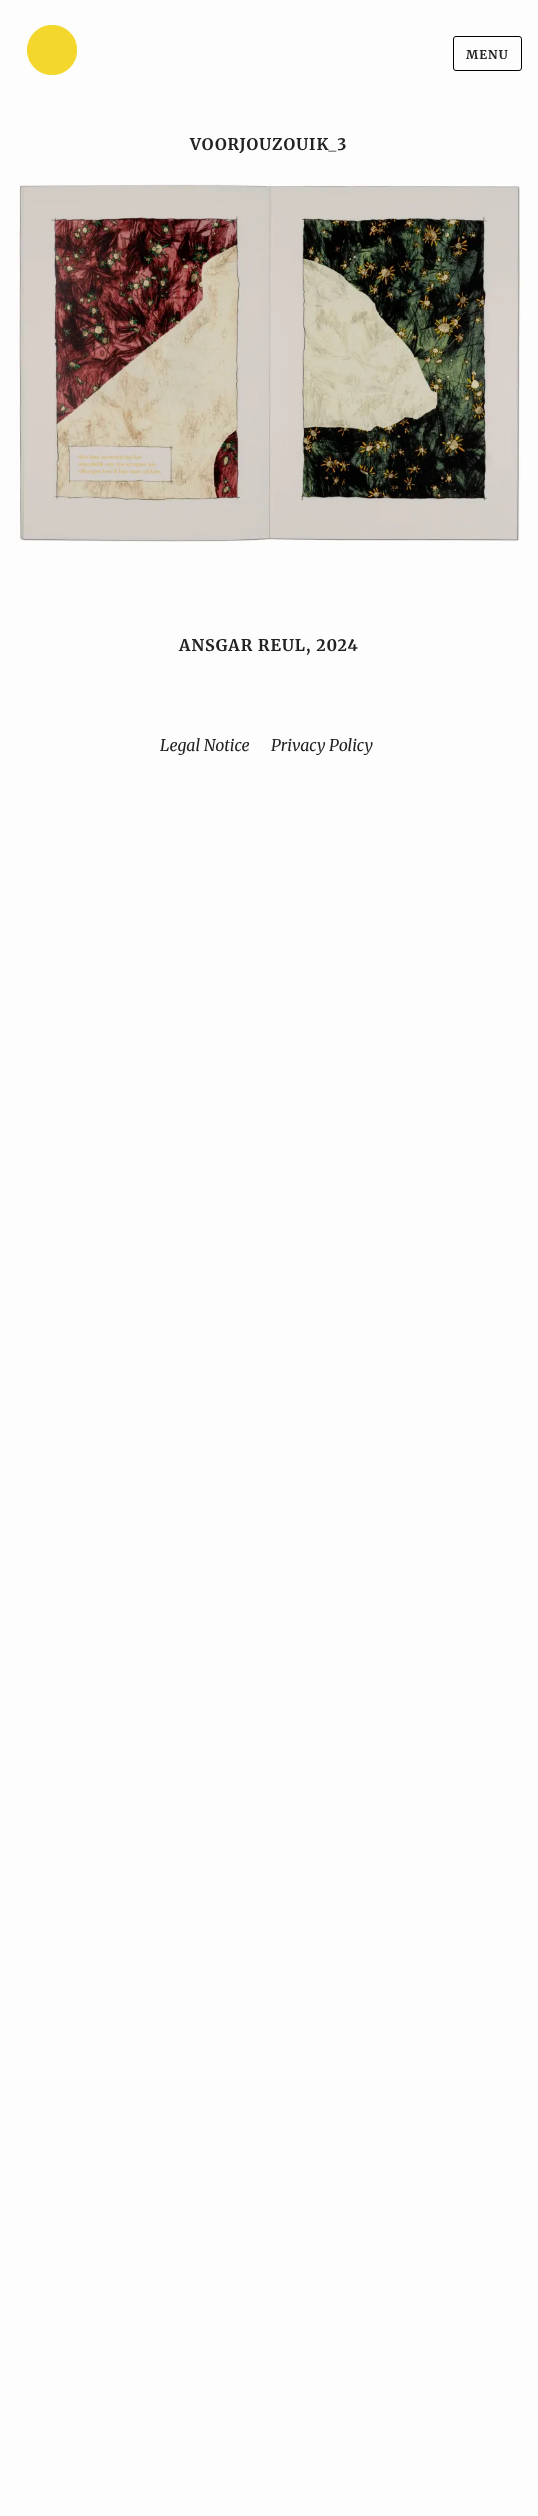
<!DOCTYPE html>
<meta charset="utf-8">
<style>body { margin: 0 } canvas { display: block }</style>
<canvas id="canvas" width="538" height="2516"></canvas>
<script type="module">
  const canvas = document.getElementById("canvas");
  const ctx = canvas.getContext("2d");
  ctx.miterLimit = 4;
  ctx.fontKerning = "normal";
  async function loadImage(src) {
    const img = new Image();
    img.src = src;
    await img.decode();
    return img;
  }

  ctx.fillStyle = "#fdfdfd";
  ctx.fillRect(0, 0, 538, 2516);
  ctx.drawImage(await loadImage("img1.png"), 26, 25, 51, 50);
  ctx.beginPath();
  ctx.roundRect(453.5, 36.5, 68, 34, 2.5);
  ctx.strokeStyle = "#000000";
  ctx.stroke();
  ctx.letterSpacing = "1px";
  ctx.font = "bold 12px Merriweather";
  ctx.fillStyle = "#222222";
  ctx.fillText("MENU", 466, 59);
  ctx.font = "bold 16px Merriweather";
  ctx.fillText("VOORJOUZOUIK_3", 190, 150);
  ctx.drawImage(await loadImage("img2.png"), 16, 184, 506, 359);
  ctx.fillText("ANSGAR REUL, 2024", 179, 651);
  ctx.letterSpacing = "0px";
  ctx.font = "italic 16px Merriweather";
  ctx.fillText("Legal Notice", 160, 751);
  ctx.fillText("Privacy Policy", 271, 751);
</script>
